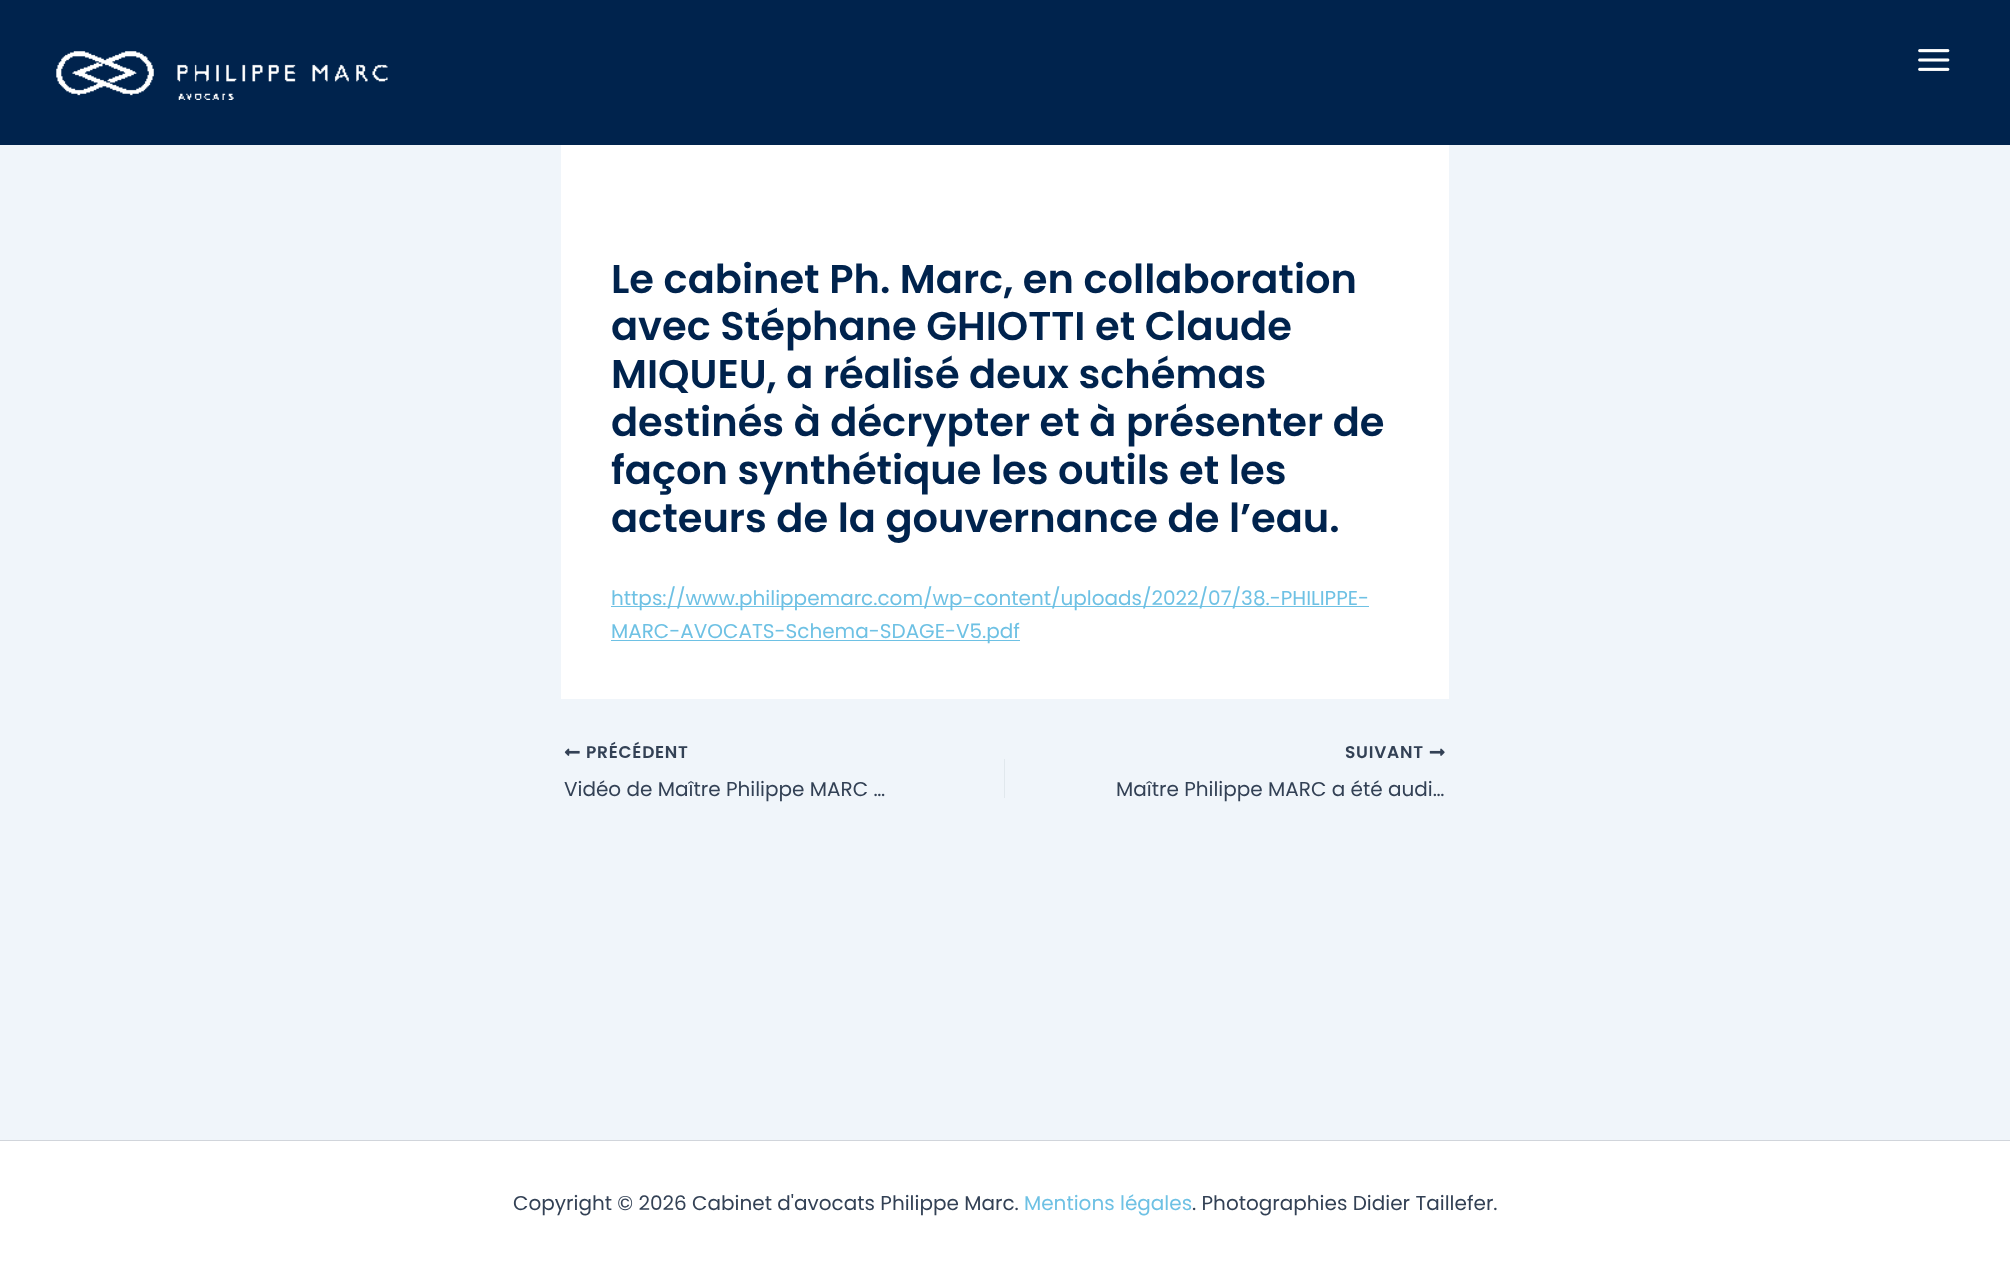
<!DOCTYPE html>
<meta charset="utf-8">
<style>body { margin: 0 } canvas { display: block }</style>
<canvas id="canvas" width="2010" height="1266"></canvas>
<script type="module">
  const canvas = document.getElementById("canvas");
  const ctx = canvas.getContext("2d");
  ctx.miterLimit = 4;
  ctx.fontKerning = "normal";
  async function loadImage(src) {
    const img = new Image();
    img.src = src;
    await img.decode();
    return img;
  }

  ctx.fillStyle = "#f0f5fa";
  ctx.fillRect(0, 0, 2010, 1266);
  ctx.fillStyle = "#00234d";
  ctx.fillRect(0, 0, 2010, 145);
  ctx.drawImage(await loadImage("img1.png"), 56, 51, 332, 49);
  ctx.drawImage(await loadImage("img2.png"), 1918, 49, 32, 22);
  ctx.fillStyle = "#ffffff";
  ctx.fillRect(561, 145, 888, 554);
  ctx.font = "600 40px Poppins";
  ctx.fillStyle = "#00234d";
  ctx.fillText("Le cabinet Ph. Marc, en collaboration", 611, 293);
  ctx.fillText("avec Stéphane GHIOTTI et Claude", 611, 340);
  ctx.fillText("MIQUEU, a réalisé deux schémas", 611, 388);
  ctx.fillText("destinés à décrypter et à présenter de", 611, 436);
  ctx.fillText("façon synthétique les outils et les", 611, 484);
  ctx.fillText("acteurs de la gouvernance de l’eau.", 611, 532);
  ctx.fillStyle = "#6ec1e4";
  ctx.fillRect(611, 606, 758, 1);
  ctx.font = "20px Poppins";
  ctx.fillText("https://www.philippemarc.com/wp-content/uploads/2022/07/38.-PHILIPPE-", 611, 605);
  ctx.fillRect(611, 640, 409, 1);
  ctx.fillText("MARC-AVOCATS-Schema-SDAGE-V5.pdf", 611, 638);
  ctx.drawImage(await loadImage("img3.png"), 564, 748, 16, 8);
  ctx.letterSpacing = "0.75px";
  ctx.font = "600 17px Poppins";
  ctx.fillStyle = "#334155";
  ctx.fillText("PRÉCÉDENT", 586, 758);
  ctx.letterSpacing = "0px";
  ctx.font = "20px Poppins";
  ctx.fillText("Vidéo de Maître Philippe MARC …", 564, 796);
  ctx.fillStyle = "#e1e8ed";
  ctx.fillRect(1004, 759, 1, 39);
  ctx.letterSpacing = "0.75px";
  ctx.font = "600 17px Poppins";
  ctx.fillStyle = "#334155";
  ctx.fillText("SUIVANT", 1345, 758);
  ctx.drawImage(await loadImage("img4.png"), 1429, 748, 16, 8);
  ctx.letterSpacing = "0px";
  ctx.font = "20px Poppins";
  ctx.fillText("Maître Philippe MARC a été audi…", 1116, 796);
  ctx.fillStyle = "#ffffff";
  ctx.fillRect(0, 1141, 2010, 125);
  ctx.fillStyle = "#d1d5db";
  ctx.fillRect(0, 1140, 2010, 1);
  ctx.fillStyle = "#334155";
  ctx.fillText("Copyright © 2026 Cabinet d'avocats Philippe Marc.", 513, 1210);
  ctx.fillStyle = "#6ec1e4";
  ctx.fillText("Mentions légales", 1024, 1210);
  ctx.fillStyle = "#334155";
  ctx.fillText(". Photographies Didier Taillefer.", 1192, 1210);
</script>
